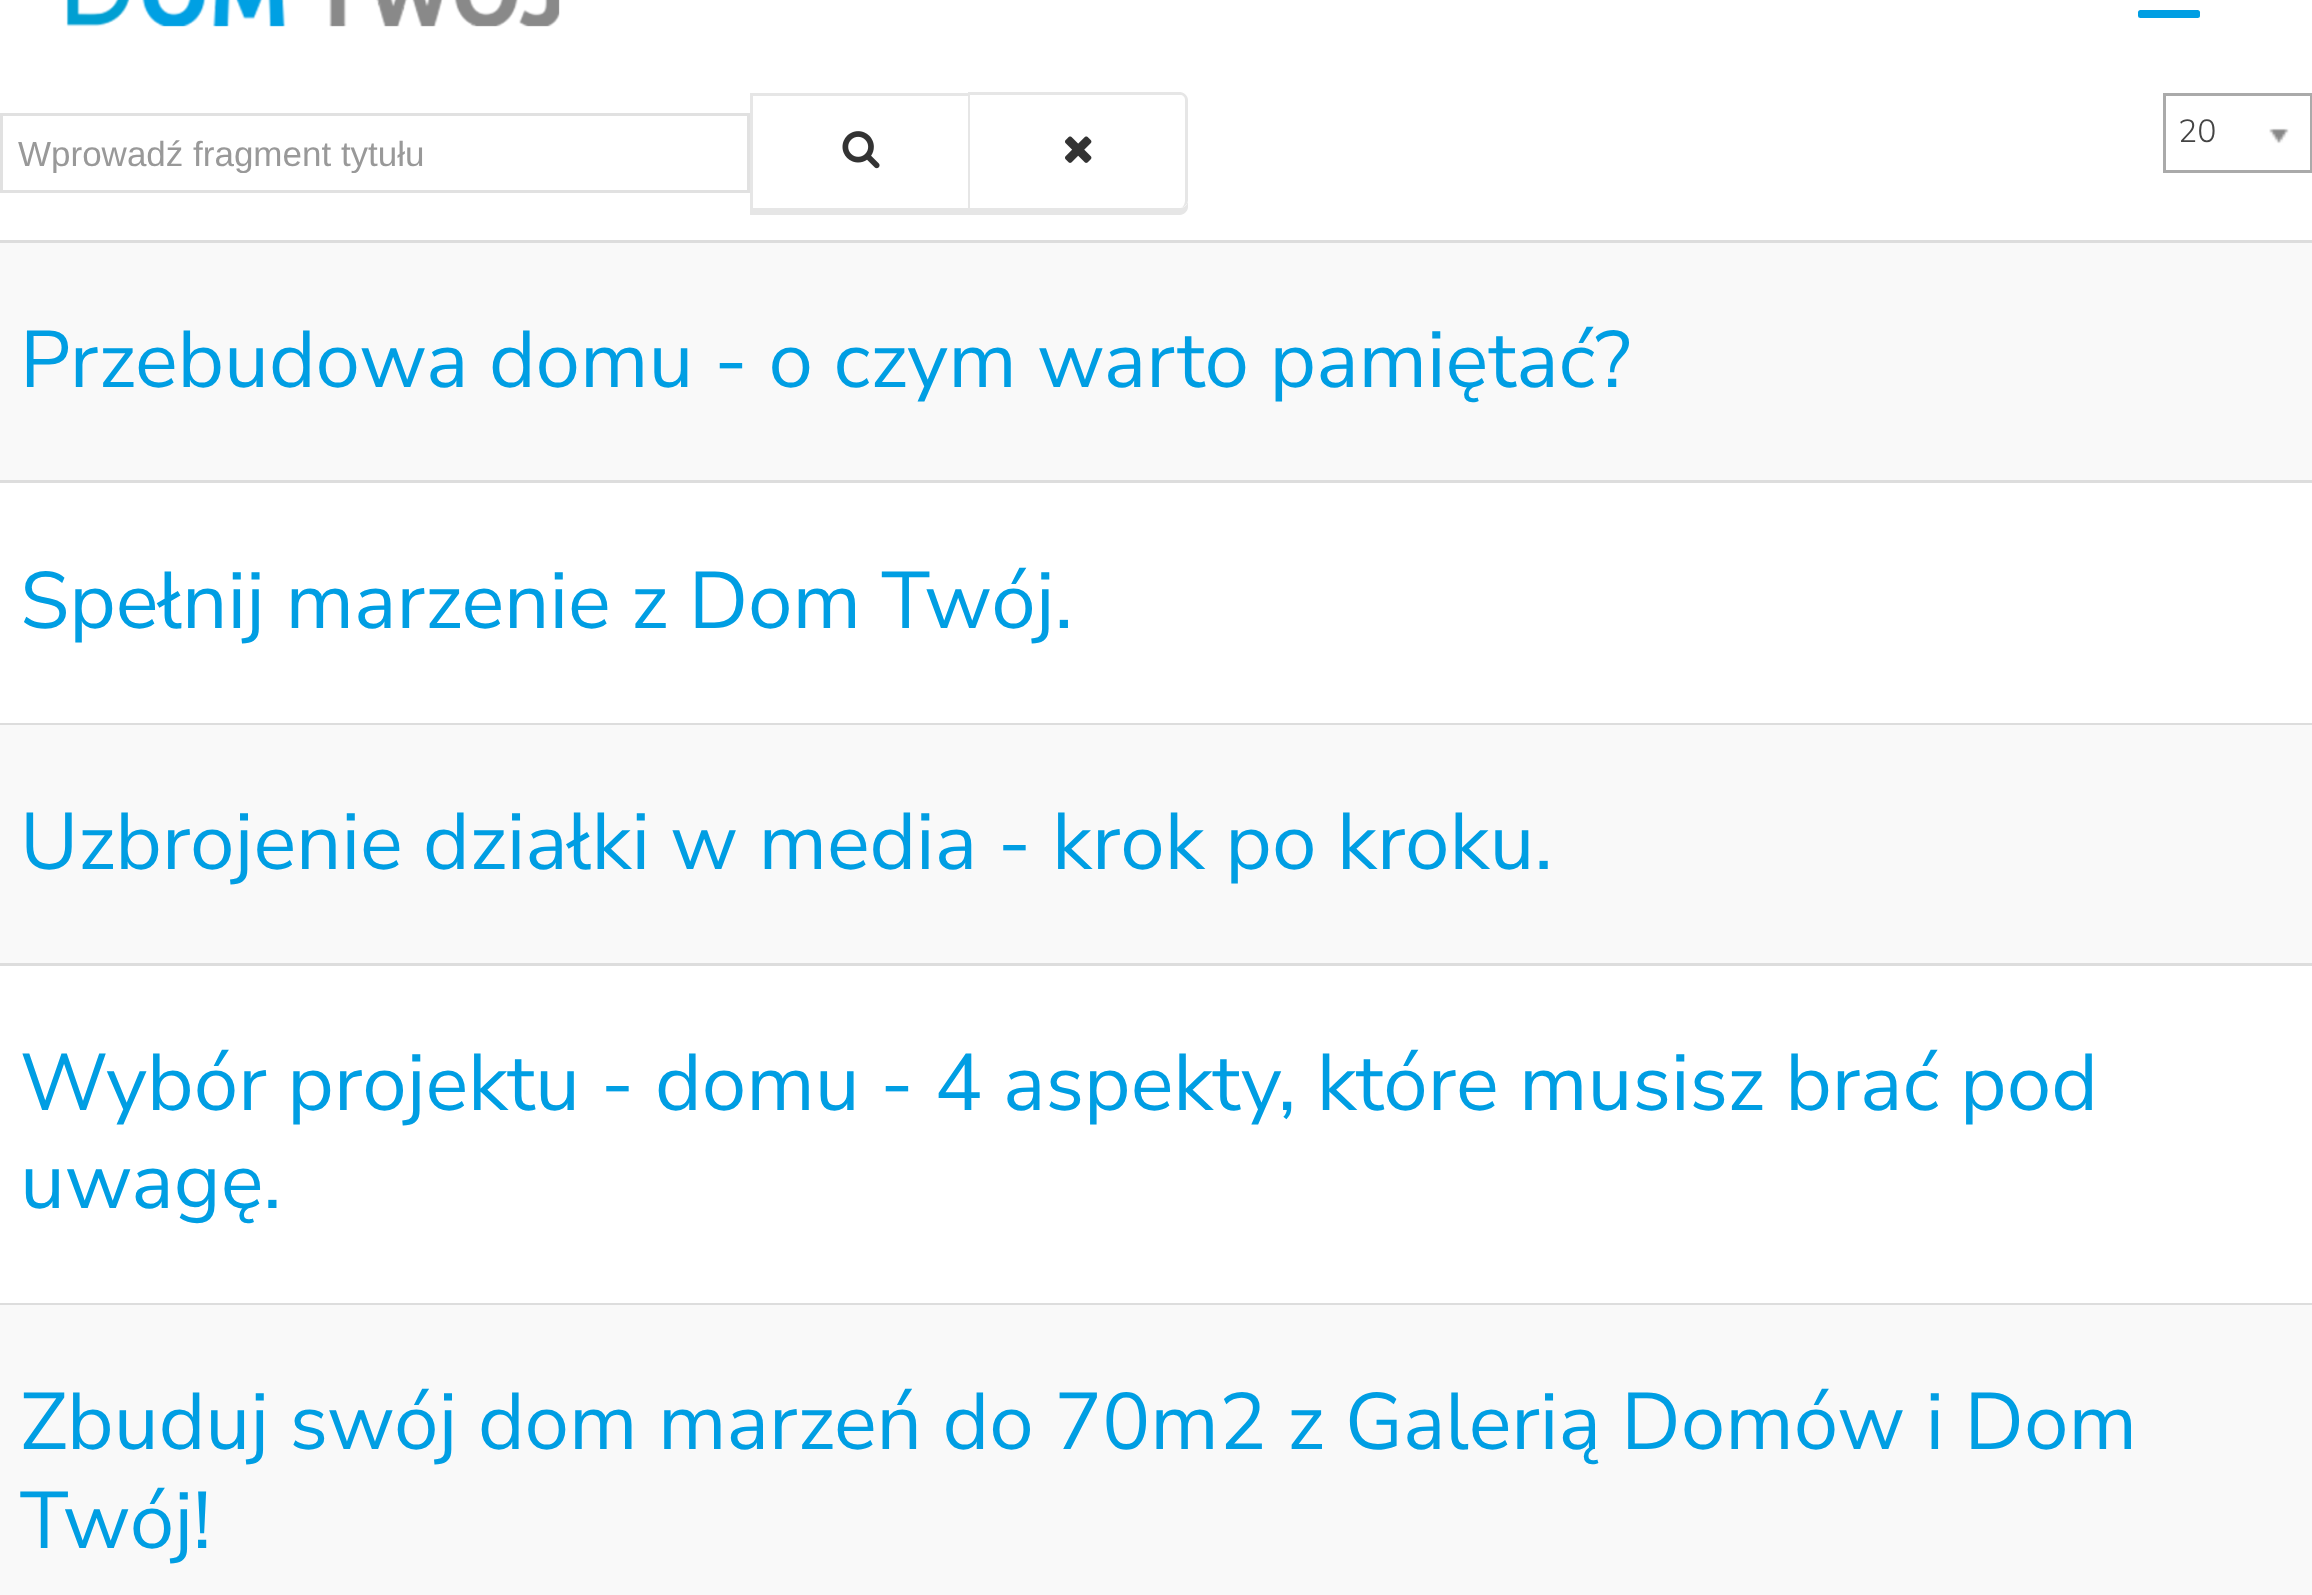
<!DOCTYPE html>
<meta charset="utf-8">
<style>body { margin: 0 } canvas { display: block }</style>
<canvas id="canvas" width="2312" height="1595"></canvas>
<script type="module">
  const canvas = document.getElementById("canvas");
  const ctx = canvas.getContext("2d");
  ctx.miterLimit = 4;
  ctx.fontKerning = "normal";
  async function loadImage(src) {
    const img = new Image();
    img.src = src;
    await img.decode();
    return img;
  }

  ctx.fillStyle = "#ffffff";
  ctx.fillRect(0, 0, 2312, 1595);
  ctx.drawImage(await loadImage("img1.png"), 66, 0, 494, 27);
  ctx.fillStyle = "#009ee3";
  ctx.beginPath();
  ctx.roundRect(2138, 10, 62, 8, 2.5);
  ctx.fill();
  ctx.strokeStyle = "#aaaaaa";
  ctx.lineWidth = 3;
  ctx.strokeRect(2164.5, 94.5, 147, 77);
  ctx.font = "300 32px Nunito Sans";
  ctx.fillStyle = "#444444";
  ctx.fillText("20", 2178, 142);
  ctx.drawImage(await loadImage("img2.png"), 2269, 128, 20, 16);
  ctx.strokeStyle = "#e1e1e1";
  ctx.strokeRect(1.5, 114.5, 747, 77);
  ctx.save();
  ctx.beginPath();
  ctx.rect(18, 133, 715, 40);
  ctx.clip();
  ctx.font = "35px Liberation Sans";
  ctx.fillStyle = "#999999";
  ctx.fillText("Wprowadź fragment tytułu", 18, 166);
  ctx.restore();
  ctx.fillStyle = "#e6e6e6";
  ctx.fillRect(750, 208, 220, 7);
  ctx.fillRect(750, 93, 220, 3);
  ctx.fillRect(750, 93, 3, 115);
  ctx.drawImage(await loadImage("img3.png"), 842, 131, 38, 38);
  ctx.beginPath();
  ctx.moveTo(968, 208);
  ctx.lineTo(968, 215);
  ctx.lineTo(1180, 215);
  ctx.bezierCurveTo(1184, 215, 1188, 211, 1188, 207);
  ctx.lineTo(1188, 108);
  ctx.lineTo(1188, 105);
  ctx.lineTo(1188, 200);
  ctx.bezierCurveTo(1188, 204, 1184, 208, 1180, 208);
  ctx.closePath();
  ctx.fill();
  ctx.fillStyle = "#ffffff";
  ctx.beginPath();
  ctx.roundRect(968, 93, 220, 115, [0, 8, 8, 0]);
  ctx.fill();
  ctx.fillStyle = "#e6e6e6";
  ctx.beginPath();
  ctx.moveTo(968, 92);
  ctx.lineTo(1180, 92);
  ctx.bezierCurveTo(1184, 92, 1188, 96, 1188, 100);
  ctx.lineTo(1188, 200);
  ctx.bezierCurveTo(1188, 204, 1184, 208, 1180, 208);
  ctx.lineTo(968, 208);
  ctx.closePath();
  ctx.moveTo(970, 95);
  ctx.lineTo(1180, 95);
  ctx.bezierCurveTo(1183, 95, 1185, 97, 1185, 100);
  ctx.lineTo(1185, 200);
  ctx.bezierCurveTo(1185, 204, 1183, 208, 1180, 208);
  ctx.lineTo(970, 208);
  ctx.closePath();
  ctx.fill("evenodd");
  ctx.drawImage(await loadImage("img4.png"), 1065, 136, 27, 27);
  ctx.fillStyle = "#dddddd";
  ctx.fillRect(0, 240, 2312, 3);
  ctx.fillStyle = "#f9f9f9";
  ctx.fillRect(0, 243, 2312, 237);
  ctx.fillStyle = "#dddddd";
  ctx.fillRect(0, 480, 2312, 3);
  ctx.font = "80px Nunito Sans";
  ctx.fillStyle = "#009ee3";
  ctx.fillText("Przebudowa domu - o czym warto pamiętać?", 20, 387);
  ctx.fillStyle = "#dddddd";
  ctx.fillRect(0, 723, 2312, 2);
  ctx.fillStyle = "#009ee3";
  ctx.fillText("Spełnij marzenie z Dom Twój.", 20, 628);
  ctx.fillStyle = "#f9f9f9";
  ctx.fillRect(0, 725, 2312, 238);
  ctx.fillStyle = "#dddddd";
  ctx.fillRect(0, 963, 2312, 3);
  ctx.fillStyle = "#009ee3";
  ctx.fillText("Uzbrojenie działki w media - krok po kroku.", 20, 869);
  ctx.fillStyle = "#dddddd";
  ctx.fillRect(0, 1303, 2312, 2);
  ctx.fillStyle = "#009ee3";
  ctx.fillText("Wybór projektu - domu - 4 aspekty, które musisz brać pod", 20, 1110);
  ctx.fillText("uwagę.", 20, 1208);
  ctx.fillStyle = "#f9f9f9";
  ctx.fillRect(0, 1305, 2312, 290);
  ctx.fillStyle = "#009ee3";
  ctx.fillText("Zbuduj swój dom marzeń do 70m2 z Galerią Domów i Dom", 20, 1449);
  ctx.fillText("Twój!", 20, 1548);
</script>
